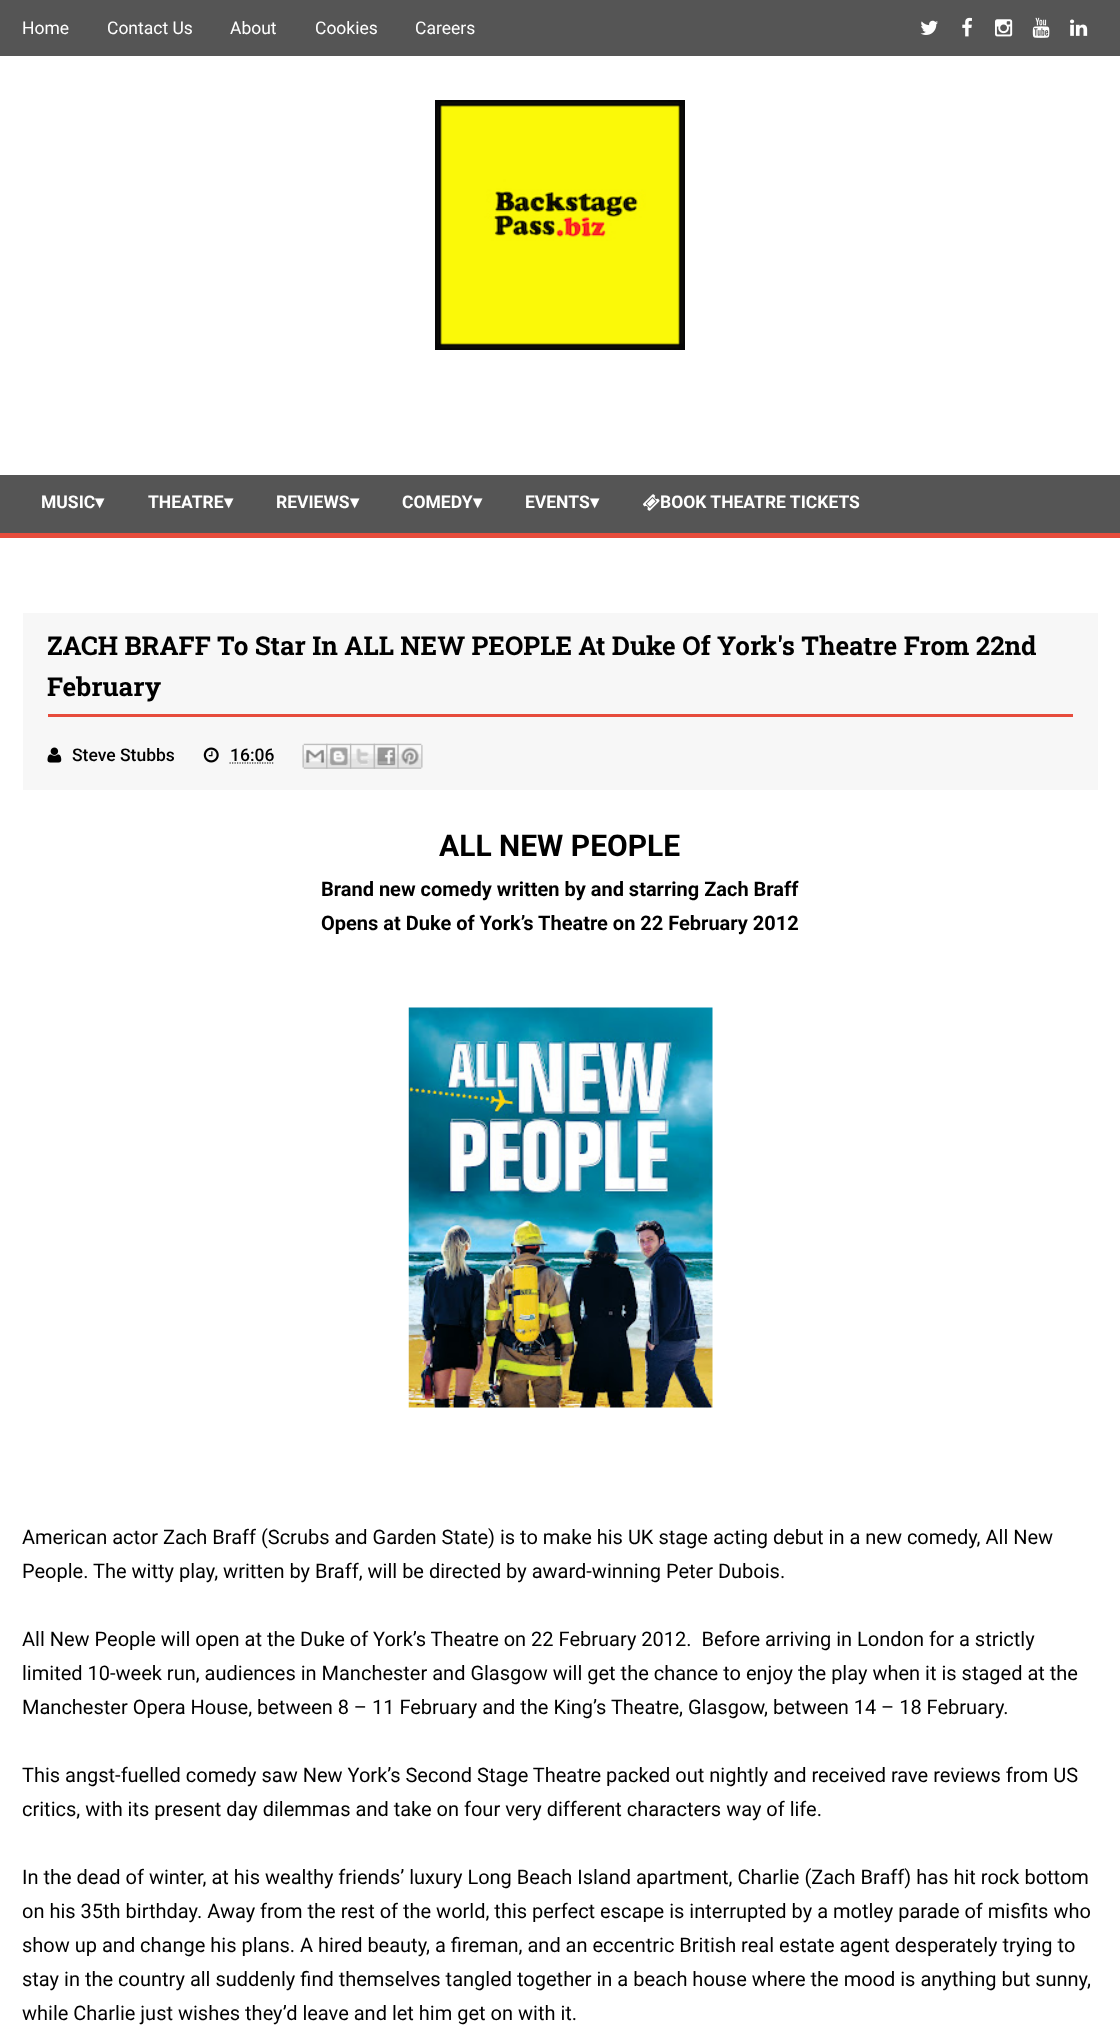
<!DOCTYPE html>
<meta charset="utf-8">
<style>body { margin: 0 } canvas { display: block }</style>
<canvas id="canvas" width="1120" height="2038"></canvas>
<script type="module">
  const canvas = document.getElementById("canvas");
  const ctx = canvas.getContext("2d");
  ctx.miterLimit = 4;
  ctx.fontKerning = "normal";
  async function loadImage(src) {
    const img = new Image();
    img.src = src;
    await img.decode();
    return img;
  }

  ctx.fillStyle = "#ffffff";
  ctx.fillRect(0, 0, 1120, 2038);
  ctx.fillStyle = "#555555";
  ctx.fillRect(0, 0, 1120, 56);
  ctx.font = "17.5px Roboto";
  ctx.fillStyle = "#ffffff";
  ctx.fillText("Home", 22, 34);
  ctx.fillText("Contact Us", 107, 34);
  ctx.fillText("About", 230, 34);
  ctx.fillText("Cookies", 315, 34);
  ctx.fillText("Careers", 415, 34);
  ctx.drawImage(await loadImage("img1.png"), 920, 20, 18, 15);
  ctx.drawImage(await loadImage("img2.png"), 962, 17, 10, 20);
  ctx.drawImage(await loadImage("img3.png"), 995, 19, 18, 18);
  ctx.drawImage(await loadImage("img4.png"), 1032, 17, 18, 21);
  ctx.drawImage(await loadImage("img5.png"), 1070, 19, 18, 17);
  ctx.drawImage(await loadImage("img6.png"), 435, 100, 250, 250);
  ctx.fillStyle = "#555555";
  ctx.fillRect(0, 475, 1120, 58);
  ctx.fillStyle = "#e74c3c";
  ctx.fillRect(0, 533, 1120, 5);
  ctx.font = "bold 17.5px Roboto";
  ctx.fillStyle = "#ffffff";
  ctx.fillText("MUSIC", 41, 508);
  ctx.font = "bold 17.5px DejaVu Sans";
  ctx.fillText("▾", 95, 508);
  ctx.font = "bold 17.5px Roboto";
  ctx.fillText("THEATRE", 148, 508);
  ctx.font = "bold 17.5px DejaVu Sans";
  ctx.fillText("▾", 224, 508);
  ctx.font = "bold 17.5px Roboto";
  ctx.fillText("REVIEWS", 276, 508);
  ctx.font = "bold 17.5px DejaVu Sans";
  ctx.fillText("▾", 350, 508);
  ctx.font = "bold 17.5px Roboto";
  ctx.fillText("COMEDY", 402, 508);
  ctx.font = "bold 17.5px DejaVu Sans";
  ctx.fillText("▾", 473, 508);
  ctx.font = "bold 17.5px Roboto";
  ctx.fillText("EVENTS", 525, 508);
  ctx.font = "bold 17.5px DejaVu Sans";
  ctx.fillText("▾", 590, 508);
  ctx.drawImage(await loadImage("img7.png"), 643, 494, 17, 17);
  ctx.font = "bold 17.5px Roboto";
  ctx.fillText("BOOK THEATRE TICKETS", 660, 508);
  ctx.fillStyle = "#f7f7f7";
  ctx.fillRect(23, 613, 1075, 177);
  ctx.fillStyle = "#e74c3c";
  ctx.fillRect(48, 714, 1025, 3);
  ctx.font = "bold 26px Roboto Slab";
  ctx.fillStyle = "#000000";
  ctx.fillText("ZACH BRAFF To Star In ALL NEW PEOPLE At Duke Of York's Theatre From 22nd", 47, 655);
  ctx.fillText("February", 47, 696);
  ctx.drawImage(await loadImage("img8.png"), 47, 747, 15, 16);
  ctx.font = "500 17.5px Roboto";
  ctx.fillText("Steve Stubbs", 72, 761);
  ctx.drawImage(await loadImage("img9.png"), 203, 747, 16, 16);
  ctx.fillText("16:06", 230, 761);
  ctx.beginPath();
  ctx.moveTo(229.5, 763);
  ctx.lineTo(274, 763);
  ctx.strokeStyle = "#000000";
  ctx.lineWidth = 1.2;
  ctx.setLineDash([1.25, 1.25]);
  ctx.stroke();
  ctx.drawImage(await loadImage("img10.png"), 302, 743, 26, 26);
  ctx.drawImage(await loadImage("img11.png"), 326, 743, 26, 26);
  ctx.drawImage(await loadImage("img12.png"), 350, 743, 25, 26);
  ctx.drawImage(await loadImage("img13.png"), 373, 743, 26, 26);
  ctx.drawImage(await loadImage("img14.png"), 397, 743, 26, 26);
  ctx.font = "bold 30px Roboto";
  ctx.fillText("ALL NEW PEOPLE", 439, 856);
  ctx.font = "bold 20px Roboto";
  ctx.fillText("Brand new comedy written by and starring Zach Braff", 321, 896);
  ctx.fillText("Opens at Duke of York’s Theatre on 22 February 2012", 321, 930);
  ctx.drawImage(await loadImage("img15.png"), 408, 1007, 305, 401);
  ctx.font = "20px Roboto";
  ctx.fillText("American actor Zach Braff (Scrubs and Garden State) is to make his UK stage acting debut in a new comedy, All New", 22, 1544);
  ctx.fillText("People. The witty play, written by Braff, will be directed by award-winning Peter Dubois.", 22, 1578);
  ctx.fillText("All New People will open at the Duke of York’s Theatre on 22 February 2012.  Before arriving in London for a strictly", 22, 1646);
  ctx.fillText("limited 10-week run, audiences in Manchester and Glasgow will get the chance to enjoy the play when it is staged at the", 22, 1680);
  ctx.fillText("Manchester Opera House, between 8 – 11 February and the King’s Theatre, Glasgow, between 14 – 18 February.", 22, 1714);
  ctx.fillText("This angst-fuelled comedy saw New York’s Second Stage Theatre packed out nightly and received rave reviews from US", 22, 1782);
  ctx.fillText("critics, with its present day dilemmas and take on four very different characters way of life.", 22, 1816);
  ctx.fillText("In the dead of winter, at his wealthy friends’ luxury Long Beach Island apartment, Charlie (Zach Braff) has hit rock bottom", 22, 1884);
  ctx.fillText("on his 35th birthday. Away from the rest of the world, this perfect escape is interrupted by a motley parade of misfits who", 22, 1918);
  ctx.fillText("show up and change his plans. A hired beauty, a fireman, and an eccentric British real estate agent desperately trying to", 22, 1952);
  ctx.fillText("stay in the country all suddenly find themselves tangled together in a beach house where the mood is anything but sunny,", 22, 1986);
  ctx.fillText("while Charlie just wishes they’d leave and let him get on with it.", 22, 2020);
</script>
